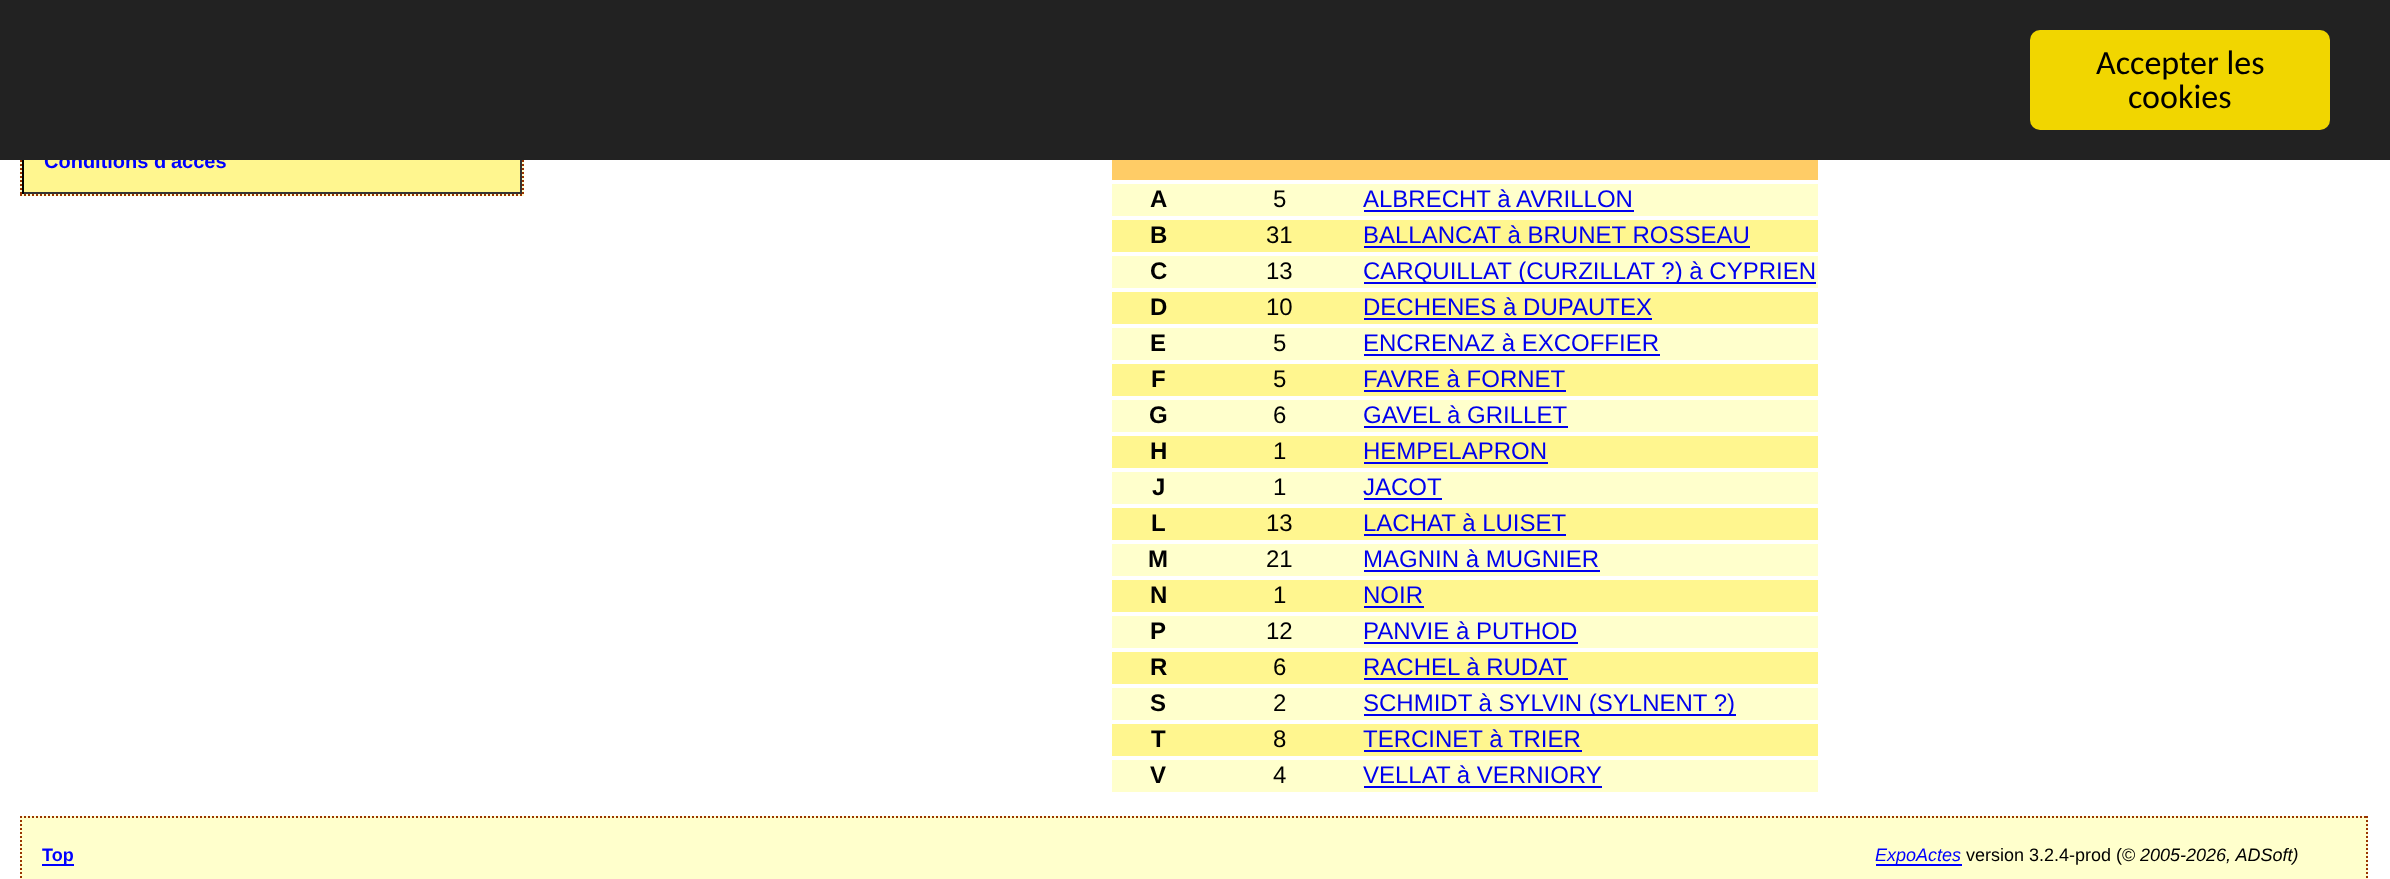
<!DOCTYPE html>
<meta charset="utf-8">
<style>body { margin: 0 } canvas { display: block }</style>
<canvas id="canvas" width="2390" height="879"></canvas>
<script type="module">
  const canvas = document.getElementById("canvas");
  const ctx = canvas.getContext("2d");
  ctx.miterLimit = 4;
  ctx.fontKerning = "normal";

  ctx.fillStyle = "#ffffff";
  ctx.fillRect(0, 0, 2390, 879);
  ctx.fillStyle = "#ffffcc";
  ctx.fillRect(20, 162, 504, 34);
  ctx.beginPath();
  ctx.moveTo(523, 12);
  ctx.lineTo(523, 196);
  ctx.strokeStyle = "#993300";
  ctx.lineWidth = 2;
  ctx.setLineDash([2, 2]);
  ctx.stroke();
  ctx.beginPath();
  ctx.moveTo(21, 12);
  ctx.lineTo(21, 196);
  ctx.stroke();
  ctx.fillStyle = "#fff68f";
  ctx.fillRect(24, 160, 496, 32);
  ctx.font = "bold 20px Liberation Sans";
  ctx.fillStyle = "#0000ff";
  ctx.fillText("Conditions d'accès", 44, 168);
  ctx.fillStyle = "#222222";
  ctx.fillRect(0, 0, 2390, 160);
  ctx.fillStyle = "#f1d600";
  ctx.beginPath();
  ctx.roundRect(2030, 30, 300, 100, 10);
  ctx.fill();
  ctx.font = "34px Carlito";
  ctx.fillStyle = "#000000";
  ctx.fillText("Accepter les", 2096, 74);
  ctx.fillText("cookies", 2128, 108);
  ctx.beginPath();
  ctx.moveTo(20, 195);
  ctx.lineTo(524, 195);
  ctx.stroke();
  ctx.fillStyle = "#333333";
  ctx.fillRect(520, 160, 2, 34);
  ctx.fillRect(22, 192, 500, 2);
  ctx.fillStyle = "#000000";
  ctx.fillRect(22, 160, 2, 34);
  ctx.fillStyle = "#ffcc66";
  ctx.fillRect(1112, 160, 706, 20);
  ctx.fillStyle = "#ffffcc";
  ctx.fillRect(1112, 184, 706, 32);
  ctx.font = "bold 24px Liberation Sans";
  ctx.fillStyle = "#000000";
  ctx.fillText("A", 1150, 207);
  ctx.font = "24px Liberation Sans";
  ctx.fillText("5", 1273, 207);
  ctx.fillStyle = "#0000ee";
  ctx.fillText("ALBRECHT à AVRILLON", 1363, 207);
  ctx.fillRect(1364, 210, 270, 2);
  ctx.fillStyle = "#fff68f";
  ctx.fillRect(1112, 220, 706, 32);
  ctx.font = "bold 24px Liberation Sans";
  ctx.fillStyle = "#000000";
  ctx.fillText("B", 1150, 243);
  ctx.font = "24px Liberation Sans";
  ctx.fillText("31", 1266, 243);
  ctx.fillStyle = "#0000ee";
  ctx.fillText("BALLANCAT à BRUNET ROSSEAU", 1363, 243);
  ctx.fillRect(1364, 246, 386, 2);
  ctx.fillStyle = "#ffffcc";
  ctx.fillRect(1112, 256, 706, 32);
  ctx.font = "bold 24px Liberation Sans";
  ctx.fillStyle = "#000000";
  ctx.fillText("C", 1150, 279);
  ctx.font = "24px Liberation Sans";
  ctx.fillText("13", 1266, 279);
  ctx.fillStyle = "#0000ee";
  ctx.fillRect(1364, 282, 452, 2);
  ctx.fillText("CARQUILLAT (CURZILLAT ?) à CYPRIEN", 1363, 279);
  ctx.fillStyle = "#fff68f";
  ctx.fillRect(1112, 292, 706, 32);
  ctx.font = "bold 24px Liberation Sans";
  ctx.fillStyle = "#000000";
  ctx.fillText("D", 1150, 315);
  ctx.font = "24px Liberation Sans";
  ctx.fillText("10", 1266, 315);
  ctx.fillStyle = "#0000ee";
  ctx.fillText("DECHENES à DUPAUTEX", 1363, 315);
  ctx.fillRect(1364, 318, 288, 2);
  ctx.fillStyle = "#ffffcc";
  ctx.fillRect(1112, 328, 706, 32);
  ctx.font = "bold 24px Liberation Sans";
  ctx.fillStyle = "#000000";
  ctx.fillText("E", 1150, 351);
  ctx.font = "24px Liberation Sans";
  ctx.fillText("5", 1273, 351);
  ctx.fillStyle = "#0000ee";
  ctx.fillText("ENCRENAZ à EXCOFFIER", 1363, 351);
  ctx.fillRect(1364, 354, 296, 2);
  ctx.fillStyle = "#fff68f";
  ctx.fillRect(1112, 364, 706, 32);
  ctx.font = "bold 24px Liberation Sans";
  ctx.fillStyle = "#000000";
  ctx.fillText("F", 1151, 387);
  ctx.font = "24px Liberation Sans";
  ctx.fillText("5", 1273, 387);
  ctx.fillStyle = "#0000ee";
  ctx.fillText("FAVRE à FORNET", 1363, 387);
  ctx.fillRect(1364, 390, 202, 2);
  ctx.fillStyle = "#ffffcc";
  ctx.fillRect(1112, 400, 706, 32);
  ctx.font = "bold 24px Liberation Sans";
  ctx.fillStyle = "#000000";
  ctx.fillText("G", 1149, 423);
  ctx.font = "24px Liberation Sans";
  ctx.fillText("6", 1273, 423);
  ctx.fillStyle = "#0000ee";
  ctx.fillText("GAVEL à GRILLET", 1363, 423);
  ctx.fillRect(1364, 426, 204, 2);
  ctx.fillStyle = "#fff68f";
  ctx.fillRect(1112, 436, 706, 32);
  ctx.font = "bold 24px Liberation Sans";
  ctx.fillStyle = "#000000";
  ctx.fillText("H", 1150, 459);
  ctx.font = "24px Liberation Sans";
  ctx.fillText("1", 1273, 459);
  ctx.fillStyle = "#0000ee";
  ctx.fillText("HEMPELAPRON", 1363, 459);
  ctx.fillRect(1364, 462, 184, 2);
  ctx.fillStyle = "#ffffcc";
  ctx.fillRect(1112, 472, 706, 32);
  ctx.font = "bold 24px Liberation Sans";
  ctx.fillStyle = "#000000";
  ctx.fillText("J", 1152, 495);
  ctx.font = "24px Liberation Sans";
  ctx.fillText("1", 1273, 495);
  ctx.fillStyle = "#0000ee";
  ctx.fillText("JACOT", 1363, 495);
  ctx.fillRect(1364, 498, 78, 2);
  ctx.fillStyle = "#fff68f";
  ctx.fillRect(1112, 508, 706, 32);
  ctx.font = "bold 24px Liberation Sans";
  ctx.fillStyle = "#000000";
  ctx.fillText("L", 1151, 531);
  ctx.font = "24px Liberation Sans";
  ctx.fillText("13", 1266, 531);
  ctx.fillStyle = "#0000ee";
  ctx.fillText("LACHAT à LUISET", 1363, 531);
  ctx.fillRect(1364, 534, 202, 2);
  ctx.fillStyle = "#ffffcc";
  ctx.fillRect(1112, 544, 706, 32);
  ctx.font = "bold 24px Liberation Sans";
  ctx.fillStyle = "#000000";
  ctx.fillText("M", 1148, 567);
  ctx.font = "24px Liberation Sans";
  ctx.fillText("21", 1266, 567);
  ctx.fillStyle = "#0000ee";
  ctx.fillText("MAGNIN à MUGNIER", 1363, 567);
  ctx.fillRect(1364, 570, 236, 2);
  ctx.fillStyle = "#fff68f";
  ctx.fillRect(1112, 580, 706, 32);
  ctx.font = "bold 24px Liberation Sans";
  ctx.fillStyle = "#000000";
  ctx.fillText("N", 1150, 603);
  ctx.font = "24px Liberation Sans";
  ctx.fillText("1", 1273, 603);
  ctx.fillStyle = "#0000ee";
  ctx.fillText("NOIR", 1363, 603);
  ctx.fillRect(1364, 606, 60, 2);
  ctx.fillStyle = "#ffffcc";
  ctx.fillRect(1112, 616, 706, 32);
  ctx.font = "bold 24px Liberation Sans";
  ctx.fillStyle = "#000000";
  ctx.fillText("P", 1150, 639);
  ctx.font = "24px Liberation Sans";
  ctx.fillText("12", 1266, 639);
  ctx.fillStyle = "#0000ee";
  ctx.fillText("PANVIE à PUTHOD", 1363, 639);
  ctx.fillRect(1364, 642, 214, 2);
  ctx.fillStyle = "#fff68f";
  ctx.fillRect(1112, 652, 706, 32);
  ctx.font = "bold 24px Liberation Sans";
  ctx.fillStyle = "#000000";
  ctx.fillText("R", 1150, 675);
  ctx.font = "24px Liberation Sans";
  ctx.fillText("6", 1273, 675);
  ctx.fillStyle = "#0000ee";
  ctx.fillText("RACHEL à RUDAT", 1363, 675);
  ctx.fillRect(1364, 678, 204, 2);
  ctx.fillStyle = "#ffffcc";
  ctx.fillRect(1112, 688, 706, 32);
  ctx.font = "bold 24px Liberation Sans";
  ctx.fillStyle = "#000000";
  ctx.fillText("S", 1150, 711);
  ctx.font = "24px Liberation Sans";
  ctx.fillText("2", 1273, 711);
  ctx.fillStyle = "#0000ee";
  ctx.fillRect(1364, 714, 372, 2);
  ctx.fillText("SCHMIDT à SYLVIN (SYLNENT ?)", 1363, 711);
  ctx.fillStyle = "#fff68f";
  ctx.fillRect(1112, 724, 706, 32);
  ctx.font = "bold 24px Liberation Sans";
  ctx.fillStyle = "#000000";
  ctx.fillText("T", 1151, 747);
  ctx.font = "24px Liberation Sans";
  ctx.fillText("8", 1273, 747);
  ctx.fillStyle = "#0000ee";
  ctx.fillText("TERCINET à TRIER", 1363, 747);
  ctx.fillRect(1364, 750, 218, 2);
  ctx.fillStyle = "#ffffcc";
  ctx.fillRect(1112, 760, 706, 32);
  ctx.font = "bold 24px Liberation Sans";
  ctx.fillStyle = "#000000";
  ctx.fillText("V", 1150, 783);
  ctx.font = "24px Liberation Sans";
  ctx.fillText("4", 1273, 783);
  ctx.fillStyle = "#0000ee";
  ctx.fillText("VELLAT à VERNIORY", 1363, 783);
  ctx.fillRect(1364, 786, 238, 2);
  ctx.fillStyle = "#ffffcc";
  ctx.fillRect(20, 816, 2348, 63);
  ctx.beginPath();
  ctx.moveTo(20, 817);
  ctx.lineTo(2368, 817);
  ctx.stroke();
  ctx.beginPath();
  ctx.moveTo(2367, 816);
  ctx.lineTo(2367, 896);
  ctx.stroke();
  ctx.beginPath();
  ctx.moveTo(21, 816);
  ctx.lineTo(21, 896);
  ctx.stroke();
  ctx.fillStyle = "#0000ff";
  ctx.fillRect(42, 864, 32, 2);
  ctx.font = "bold 18px Liberation Sans";
  ctx.fillText("Top", 42, 861);
  ctx.fillRect(1876, 864, 86, 2);
  ctx.font = "italic 18px Liberation Sans";
  ctx.fillText("ExpoActes", 1875, 861);
  ctx.font = "18px Liberation Sans";
  ctx.fillStyle = "#000000";
  ctx.fillText("version 3.2.4-prod (©", 1966, 861);
  ctx.font = "italic 18px Liberation Sans";
  ctx.fillText("2005-2026, ADSoft)", 2140, 861);
</script>
